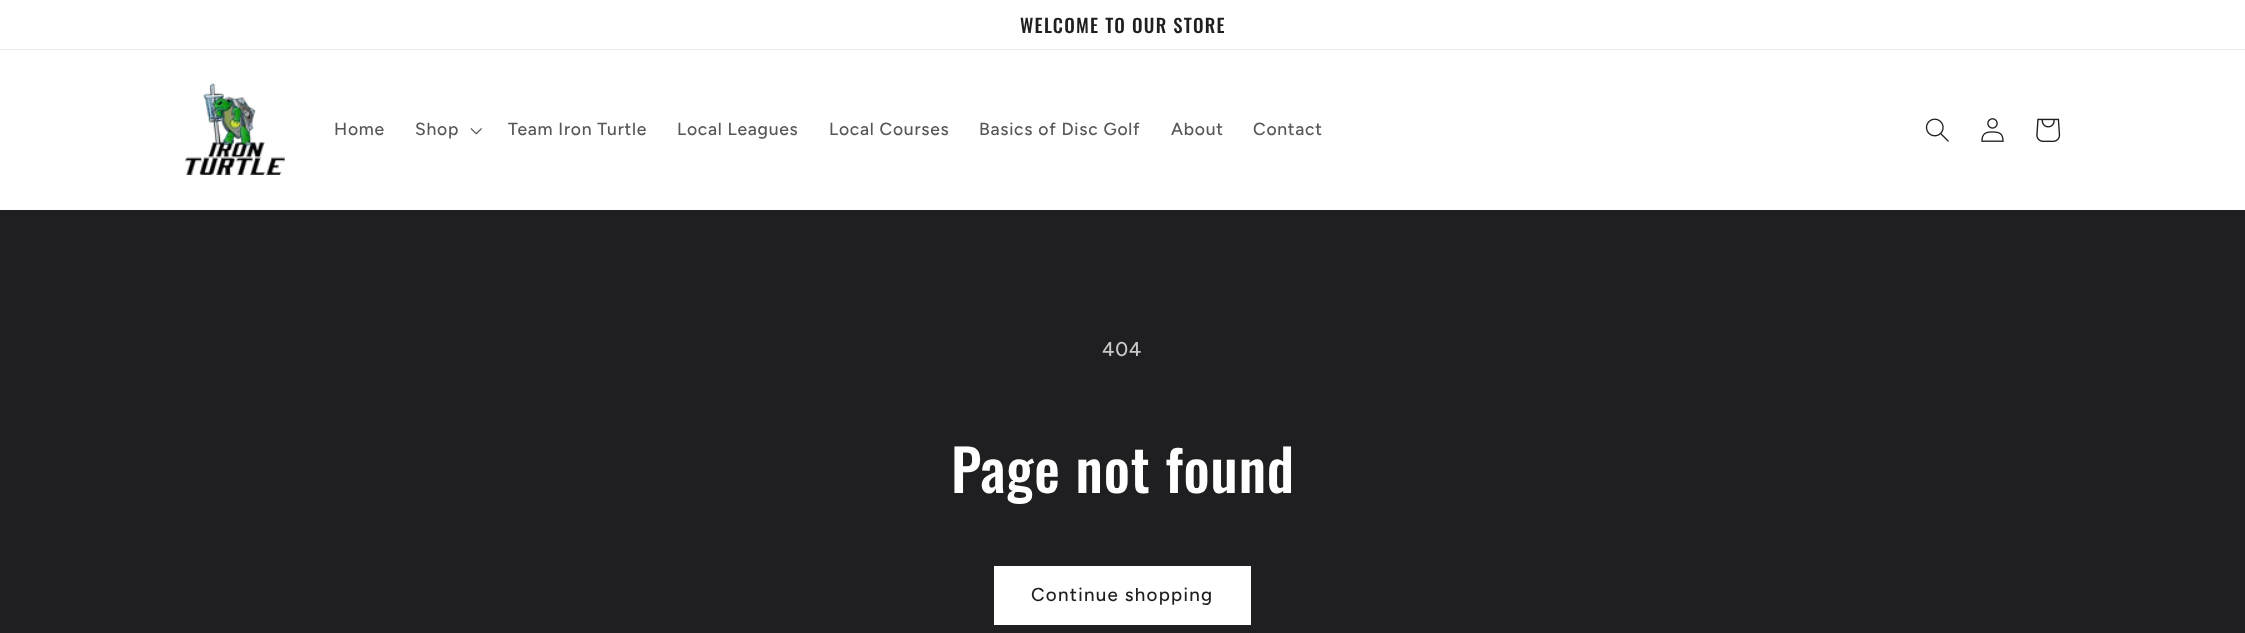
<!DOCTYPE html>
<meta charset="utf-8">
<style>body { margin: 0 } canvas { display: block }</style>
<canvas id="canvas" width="2245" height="633"></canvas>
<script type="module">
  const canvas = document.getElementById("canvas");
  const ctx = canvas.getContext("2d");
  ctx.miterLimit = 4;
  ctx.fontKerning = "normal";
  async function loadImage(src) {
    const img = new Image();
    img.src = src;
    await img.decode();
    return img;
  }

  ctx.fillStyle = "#1f1f21";
  ctx.fillRect(0, 0, 2245, 633);
  ctx.fillStyle = "#ffffff";
  ctx.fillRect(0, 0, 2245, 49);
  ctx.fillStyle = "#ededed";
  ctx.fillRect(0, 49, 2245, 1);
  ctx.letterSpacing = "1.25px";
  ctx.font = "500 18.75px Oswald";
  ctx.fillStyle = "#1f1f21";
  ctx.fillText("WELCOME TO OUR STORE", 1020, 33);
  ctx.fillStyle = "#ffffff";
  ctx.fillRect(0, 50, 2245, 160);
  ctx.drawImage(await loadImage("img1.png"), 185, 83, 100, 92);
  ctx.letterSpacing = "0.75px";
  ctx.font = "500 17.5px Figtree";
  ctx.fillStyle = "#575759";
  ctx.fillText("Home", 334, 135);
  ctx.fillText("Shop", 415, 135);
  ctx.drawImage(await loadImage("img2.png"), 470, 128, 12, 7);
  ctx.fillText("Team Iron Turtle", 508, 135);
  ctx.fillText("Local Leagues", 677, 135);
  ctx.fillText("Local Courses", 829, 135);
  ctx.fillText("Basics of Disc Golf", 979, 135);
  ctx.fillText("About", 1171, 135);
  ctx.fillText("Contact", 1253, 135);
  ctx.drawImage(await loadImage("img3.png"), 1925, 118, 24, 24);
  ctx.drawImage(await loadImage("img4.png"), 1981, 118, 23, 24);
  ctx.drawImage(await loadImage("img5.png"), 2036, 118, 25, 24);
  ctx.font = "500 20px Figtree";
  ctx.fillStyle = "#c7c7c8";
  ctx.fillText("404", 1102, 356);
  ctx.letterSpacing = "0.9px";
  ctx.font = "500 57.5px Oswald";
  ctx.fillStyle = "#ffffff";
  ctx.fillText("Page not found", 951, 493);
  ctx.fillRect(994, 566, 257, 59);
  ctx.letterSpacing = "1.25px";
  ctx.font = "500 18.75px Figtree";
  ctx.fillStyle = "#1f1f21";
  ctx.fillText("Continue shopping", 1031, 601);
</script>
